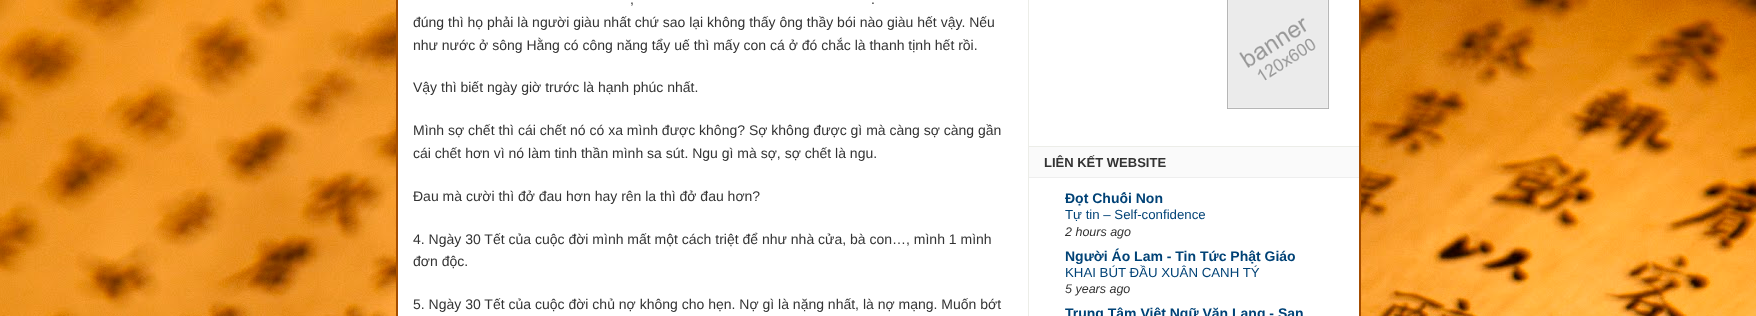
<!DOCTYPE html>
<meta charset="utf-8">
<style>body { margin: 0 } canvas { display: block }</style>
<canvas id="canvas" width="1756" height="316"></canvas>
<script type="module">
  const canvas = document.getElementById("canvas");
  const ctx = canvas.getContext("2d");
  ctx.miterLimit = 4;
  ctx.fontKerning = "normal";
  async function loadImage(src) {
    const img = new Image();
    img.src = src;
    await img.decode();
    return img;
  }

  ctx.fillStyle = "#ffffff";
  ctx.fillRect(0, 0, 1756, 316);
  ctx.drawImage(await loadImage("img1.png"), 0, 0, 1756, 316);
  ctx.fillRect(398, 0, 961, 316);
  ctx.fillStyle = "#a34c00";
  ctx.beginPath();
  ctx.moveTo(1361, -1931);
  ctx.lineTo(1361, 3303);
  ctx.lineTo(1359, 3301);
  ctx.lineTo(1359, -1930);
  ctx.closePath();
  ctx.fill();
  ctx.beginPath();
  ctx.moveTo(396, 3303);
  ctx.lineTo(396, -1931);
  ctx.lineTo(398, -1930);
  ctx.lineTo(398, 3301);
  ctx.closePath();
  ctx.fill();
  ctx.fillStyle = "#ecede8";
  ctx.fillRect(1028, 0, 1, 316);
  ctx.font = "14px Liberation Sans";
  ctx.fillStyle = "#333333";
  ctx.fillText(",", 630, 4);
  ctx.fillText(".", 871, 4);
  ctx.fillText("đúng thì họ phải là người giàu nhất chứ sao lại không thấy ông thầy bói nào giàu hết vậy. Nếu", 413, 27);
  ctx.fillText("như nước ở sông Hằng có công năng tẩy uế thì mấy con cá ở đó chắc là thanh tịnh hết rồi.", 413, 50);
  ctx.fillText("Vậy thì biết ngày giờ trước là hạnh phúc nhất.", 413, 92);
  ctx.fillText("Mình sợ chết thì cái chết nó có xa mình được không? Sợ không được gì mà càng sợ càng gần", 413, 135);
  ctx.fillText("cái chết hơn vì nó làm tinh thần mình sa sút. Ngu gì mà sợ, sợ chết là ngu.", 413, 158);
  ctx.fillText("Đau mà cười thì đở đau hơn hay rên la thì đở đau hơn?", 413, 201);
  ctx.fillText("4. Ngày 30 Tết của cuộc đời mình mất một cách triệt để như nhà cửa, bà con…, mình 1 mình", 413, 244);
  ctx.fillText("đơn độc.", 413, 266);
  ctx.fillText("5. Ngày 30 Tết của cuộc đời chủ nợ không cho hẹn. Nợ gì là nặng nhất, là nợ mạng. Muốn bớt", 413, 309);
  ctx.fillStyle = "#ecede8";
  ctx.fillRect(1029, 146, 330, 1);
  ctx.drawImage(await loadImage("img2.png"), 1227, 0, 102, 109);
  ctx.fillStyle = "#fafafa";
  ctx.fillRect(1029, 147, 330, 30);
  ctx.fillStyle = "#eeeeee";
  ctx.fillRect(1029, 177, 330, 1);
  ctx.font = "bold 13px Liberation Sans";
  ctx.fillStyle = "#333333";
  ctx.fillText("LIÊN KẾT WEBSITE", 1044, 167);
  ctx.font = "bold 14px Liberation Sans";
  ctx.fillStyle = "#004276";
  ctx.fillText("Đọt Chuối Non", 1065, 203);
  ctx.font = "13.25px Liberation Sans";
  ctx.fillText("Tự tin – Self-confidence", 1065, 219);
  ctx.font = "italic 12.5px Liberation Sans";
  ctx.fillStyle = "#333333";
  ctx.fillText("2 hours ago", 1065, 236);
  ctx.font = "bold 14px Liberation Sans";
  ctx.fillStyle = "#004276";
  ctx.fillText("Người Áo Lam - Tin Tức Phật Giáo", 1065, 261);
  ctx.font = "13.25px Liberation Sans";
  ctx.fillText("KHAI BÚT ĐẦU XUÂN CANH TÝ", 1065, 277);
  ctx.font = "italic 12.5px Liberation Sans";
  ctx.fillStyle = "#333333";
  ctx.fillText("5 years ago", 1065, 293);
  ctx.font = "bold 14px Liberation Sans";
  ctx.fillStyle = "#004276";
  ctx.fillText("Trung Tâm Việt Ngữ Văn Lang - San", 1065, 318);
</script>
